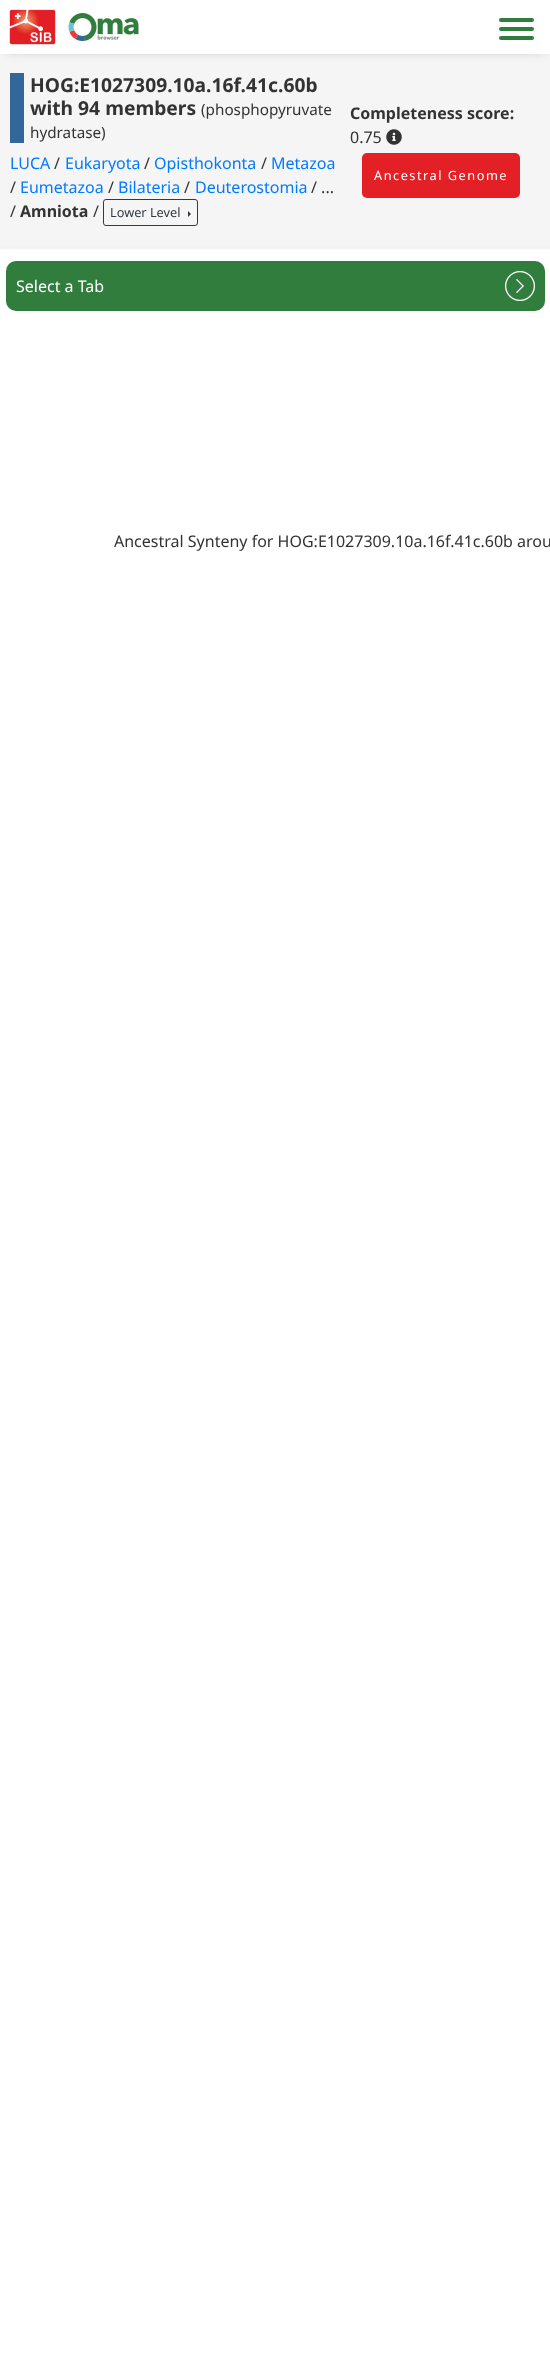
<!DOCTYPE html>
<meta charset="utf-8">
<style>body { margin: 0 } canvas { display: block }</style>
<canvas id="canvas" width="550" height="2372"></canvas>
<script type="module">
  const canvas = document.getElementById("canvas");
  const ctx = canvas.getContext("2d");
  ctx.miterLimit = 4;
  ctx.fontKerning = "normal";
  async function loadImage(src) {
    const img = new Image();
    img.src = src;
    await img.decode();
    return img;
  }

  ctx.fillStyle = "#ffffff";
  ctx.fillRect(0, 0, 550, 2372);
  ctx.fillStyle = "rgba(0, 0, 0, 0.05)";
  ctx.filter = "blur(1px)";
  ctx.beginPath();
  ctx.rect(-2, 52, 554, 197);
  ctx.fill();
  ctx.filter = "none";
  ctx.fillStyle = "#f5f5f5";
  ctx.fillRect(0, 54, 550, 192);
  ctx.fillStyle = "rgba(0, 0, 0, 0.4)";
  ctx.filter = "blur(6.5px)";
  ctx.beginPath();
  ctx.rect(6, 6, 538, 42);
  ctx.fill();
  ctx.filter = "none";
  ctx.fillStyle = "#ffffff";
  ctx.fillRect(0, 0, 550, 54);
  ctx.drawImage(await loadImage("img1.png"), 9, 9, 47, 36);
  ctx.drawImage(await loadImage("img2.png"), 68, 13, 71, 28);
  ctx.fillStyle = "#317d3d";
  ctx.beginPath();
  ctx.roundRect(499, 18, 35, 4, 2);
  ctx.fill();
  ctx.beginPath();
  ctx.roundRect(499, 27, 35, 4, 2);
  ctx.fill();
  ctx.beginPath();
  ctx.roundRect(499, 36, 35, 4, 2);
  ctx.fill();
  ctx.fillStyle = "#336799";
  ctx.fillRect(10, 73, 14, 70);
  ctx.font = "bold 19.25px Noto Sans";
  ctx.fillStyle = "#333333";
  ctx.fillText("HOG:E1027309.10a.16f.41c.60b", 30, 92);
  ctx.fillText("with 94 members", 30, 115);
  ctx.font = "15.25px Noto Sans";
  ctx.fillText("(phosphopyruvate", 201, 115);
  ctx.fillText("hydratase)", 30, 138);
  ctx.font = "16px Noto Sans";
  ctx.fillStyle = "#007bff";
  ctx.fillText("LUCA", 10, 169);
  ctx.fillStyle = "#333333";
  ctx.fillText("/", 54, 169);
  ctx.fillStyle = "#007bff";
  ctx.fillText("Eukaryota", 65, 169);
  ctx.fillStyle = "#333333";
  ctx.fillText("/", 144, 169);
  ctx.fillStyle = "#007bff";
  ctx.fillText("Opisthokonta", 154, 169);
  ctx.fillStyle = "#333333";
  ctx.fillText("/", 261, 169);
  ctx.fillStyle = "#007bff";
  ctx.fillText("Metazoa", 271, 169);
  ctx.fillStyle = "#333333";
  ctx.fillText("/", 10, 193);
  ctx.fillStyle = "#007bff";
  ctx.fillText("Eumetazoa", 20, 193);
  ctx.fillStyle = "#333333";
  ctx.fillText("/", 108, 193);
  ctx.fillStyle = "#007bff";
  ctx.fillText("Bilateria", 118, 193);
  ctx.fillStyle = "#333333";
  ctx.fillText("/", 184, 193);
  ctx.fillStyle = "#007bff";
  ctx.fillText("Deuterostomia", 195, 193);
  ctx.fillStyle = "#333333";
  ctx.fillText("/ ...", 311, 193);
  ctx.fillText("/", 10, 217);
  ctx.font = "bold 16px Noto Sans";
  ctx.fillText("Amniota", 20, 217);
  ctx.font = "16px Noto Sans";
  ctx.fillText("/", 93, 217);
  ctx.beginPath();
  ctx.roundRect(103.5, 199.5, 94, 26, 2.5);
  ctx.strokeStyle = "#343a40";
  ctx.stroke();
  ctx.font = "12.75px Noto Sans";
  ctx.fillStyle = "#343a40";
  ctx.fillText("Lower Level", 110, 217);
  ctx.beginPath();
  ctx.moveTo(188, 217);
  ctx.lineTo(188, 211);
  ctx.lineTo(191, 214);
  ctx.closePath();
  ctx.fill();
  ctx.font = "bold 16px Noto Sans";
  ctx.fillStyle = "#333333";
  ctx.fillText("Completeness score:", 350, 119);
  ctx.font = "16px Noto Sans";
  ctx.fillText("0.75", 350, 143);
  ctx.drawImage(await loadImage("img3.png"), 386, 129, 16, 16);
  ctx.fillStyle = "#e32026";
  ctx.beginPath();
  ctx.roundRect(362, 153, 158, 45, 5);
  ctx.fill();
  ctx.letterSpacing = "1.5px";
  ctx.font = "12.75px Noto Sans";
  ctx.fillStyle = "#ffffff";
  ctx.fillText("Ancestral Genome", 374, 180);
  ctx.fillStyle = "#317d3d";
  ctx.beginPath();
  ctx.roundRect(6, 261, 539, 50, 10);
  ctx.fill();
  ctx.letterSpacing = "0px";
  ctx.font = "16px Noto Sans";
  ctx.fillStyle = "#ffffff";
  ctx.fillText("Select a Tab", 16, 292);
  ctx.drawImage(await loadImage("img4.png"), 505, 271, 30, 30);
  ctx.fillStyle = "#333333";
  ctx.fillText("Ancestral Synteny for HOG:E1027309.10a.16f.41c.60b arou", 114, 547);
</script>
